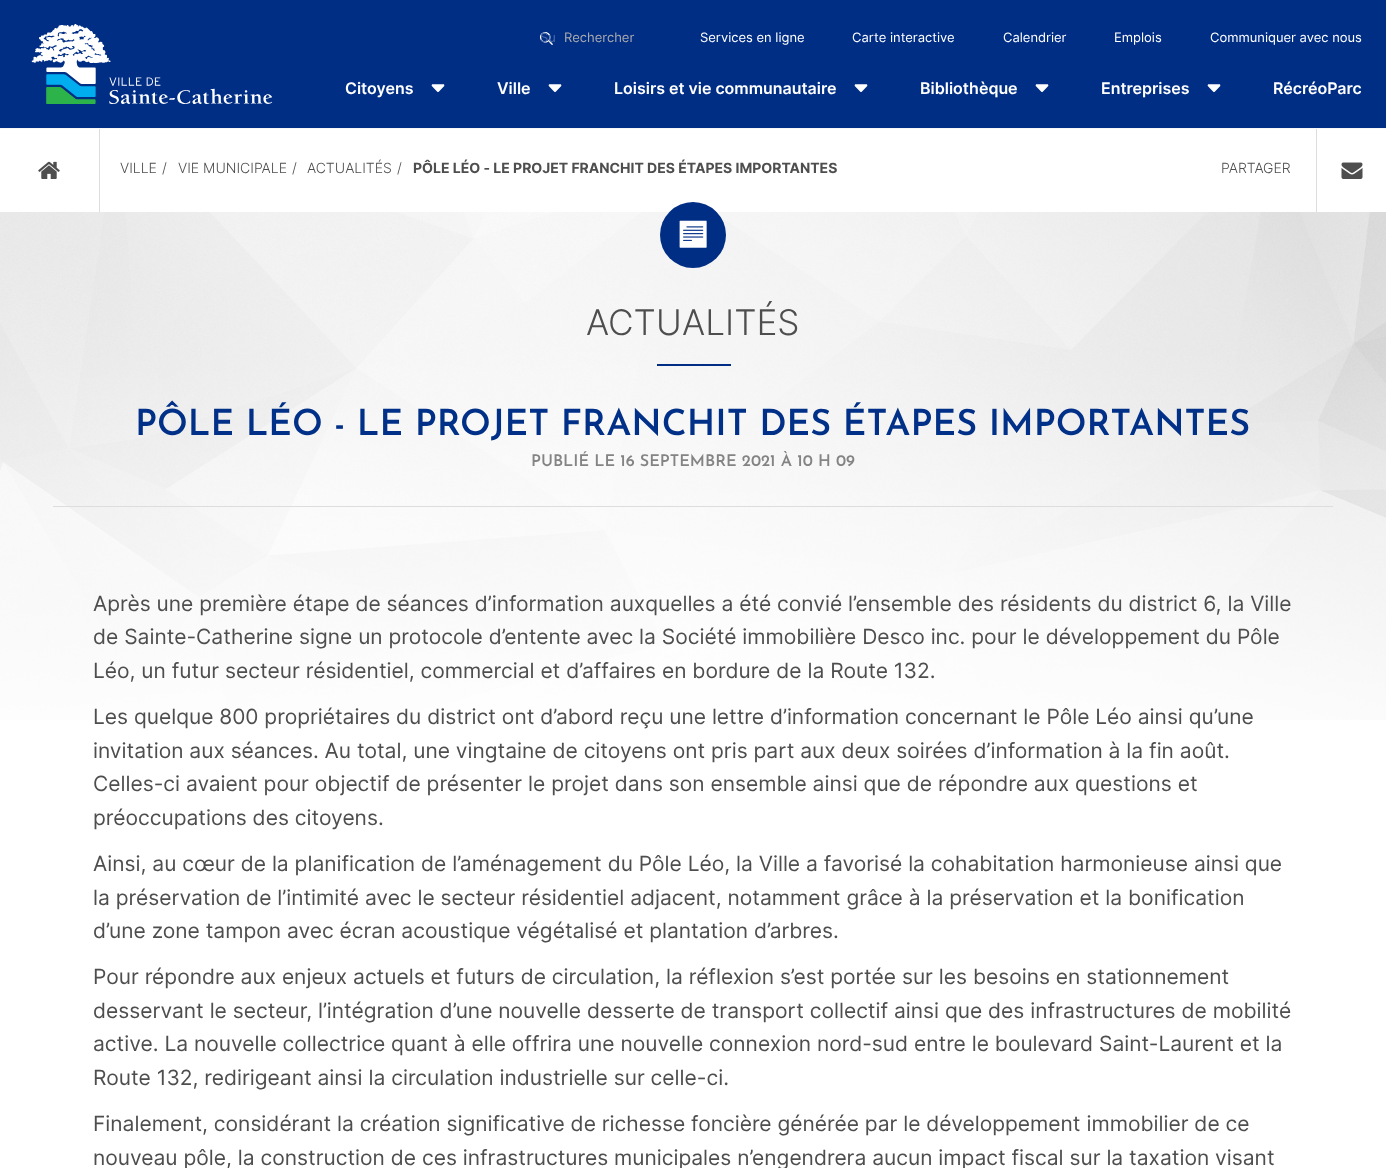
<!DOCTYPE html>
<meta charset="utf-8">
<style>body { margin: 0 } canvas { display: block }</style>
<canvas id="canvas" width="1386" height="1168"></canvas>
<script type="module">
  const canvas = document.getElementById("canvas");
  const ctx = canvas.getContext("2d");
  ctx.miterLimit = 4;
  ctx.fontKerning = "normal";
  async function loadImage(src) {
    const img = new Image();
    img.src = src;
    await img.decode();
    return img;
  }

  ctx.fillStyle = "#ffffff";
  ctx.fillRect(0, 0, 1386, 1168);
  ctx.fillStyle = "#002e85";
  ctx.fillRect(0, 0, 1386, 128);
  ctx.drawImage(await loadImage("img1.png"), 31, 24, 242, 80);
  ctx.drawImage(await loadImage("img2.png"), 540, 32, 13, 13);
  ctx.font = "13px Inter";
  ctx.fillStyle = "#4a6ba9";
  ctx.fillText("Su", 540, 42);
  ctx.fillStyle = "#a9aaad";
  ctx.fillText("Rechercher", 564, 42);
  ctx.fillStyle = "#ffffff";
  ctx.fillText("Services en ligne", 700, 42);
  ctx.fillText("Carte interactive", 852, 42);
  ctx.fillText("Calendrier", 1003, 42);
  ctx.fillText("Emplois", 1114, 42);
  ctx.fillText("Communiquer avec nous", 1210, 42);
  ctx.font = "600 16px Inter";
  ctx.fillText("Citoyens", 345, 94);
  ctx.drawImage(await loadImage("img3.png"), 431, 84, 14, 8);
  ctx.fillText("Ville", 497, 94);
  ctx.drawImage(await loadImage("img3.png"), 548, 84, 14, 8);
  ctx.fillText("Loisirs et vie communautaire", 614, 94);
  ctx.drawImage(await loadImage("img3.png"), 854, 84, 14, 8);
  ctx.fillText("Bibliothèque", 920, 94);
  ctx.drawImage(await loadImage("img3.png"), 1035, 84, 14, 8);
  ctx.fillText("Entreprises", 1101, 94);
  ctx.drawImage(await loadImage("img3.png"), 1207, 84, 14, 8);
  ctx.fillText("RécréoParc", 1273, 94);
  ctx.drawImage(await loadImage("img4.png"), 0, 212, 1386, 508);
  ctx.fillStyle = "#f7f7f7";
  ctx.fillRect(0, 128, 1386, 1);
  ctx.fillStyle = "#dddddd";
  ctx.fillRect(99, 129, 1, 83);
  ctx.drawImage(await loadImage("img5.png"), 38, 161, 22, 18);
  ctx.font = "300 14px Inter";
  ctx.fillStyle = "#4e4e4e";
  ctx.fillText("VILLE", 120, 173);
  ctx.fillText("/", 162, 173);
  ctx.fillText("VIE MUNICIPALE", 178, 173);
  ctx.fillText("/", 292, 173);
  ctx.fillText("ACTUALITÉS", 307, 173);
  ctx.fillText("/", 397, 173);
  ctx.font = "bold 14px Inter";
  ctx.fillText("PÔLE LÉO - LE PROJET FRANCHIT DES ÉTAPES IMPORTANTES", 413, 173);
  ctx.font = "300 14px Inter";
  ctx.fillText("PARTAGER", 1221, 173);
  ctx.fillStyle = "#dddddd";
  ctx.fillRect(1316, 129, 1, 83);
  ctx.drawImage(await loadImage("img6.png"), 1341, 162, 22, 17);
  ctx.fillStyle = "#002e85";
  ctx.beginPath();
  ctx.arc(693, 235, 33, 0, Math.PI * 2);
  ctx.fill();
  ctx.drawImage(await loadImage("img7.png"), 679, 220, 28, 28);
  ctx.font = "300 35.25px Inter";
  ctx.fillStyle = "#4e4e4e";
  ctx.fillText("ACTUALITÉS", 586, 335);
  ctx.fillStyle = "#002e85";
  ctx.fillRect(657, 364, 74, 2);
  ctx.fillStyle = "#dddddd";
  ctx.fillRect(53, 506, 1280, 1);
  ctx.font = "100 36px Josefin Sans";
  ctx.fillStyle = "#003087";
  ctx.fillText("PÔLE LÉO - LE PROJET FRANCHIT DES ÉTAPES IMPORTANTES", 135, 435);
  ctx.font = "100 16.2px Josefin Sans";
  ctx.fillStyle = "#848484";
  ctx.fillText("PUBLIÉ LE 16 SEPTEMBRE 2021 À 10 H 09", 531, 466);
  ctx.font = "21px Inter";
  ctx.fillStyle = "#4e4e4e";
  ctx.fillText("Après une première étape de séances d’information auxquelles a été convié l’ensemble des résidents du district 6, la Ville", 93, 611);
  ctx.fillText("de Sainte-Catherine signe un protocole d’entente avec la Société immobilière Desco inc. pour le développement du Pôle", 93, 644);
  ctx.fillText("Léo, un futur secteur résidentiel, commercial et d’affaires en bordure de la Route 132.", 93, 678);
  ctx.fillText("Les quelque 800 propriétaires du district ont d’abord reçu une lettre d’information concernant le Pôle Léo ainsi qu’une", 93, 724);
  ctx.fillText("invitation aux séances. Au total, une vingtaine de citoyens ont pris part aux deux soirées d’information à la fin août.", 93, 758);
  ctx.fillText("Celles-ci avaient pour objectif de présenter le projet dans son ensemble ainsi que de répondre aux questions et", 93, 791);
  ctx.fillText("préoccupations des citoyens.", 93, 825);
  ctx.fillText("Ainsi, au cœur de la planification de l’aménagement du Pôle Léo, la Ville a favorisé la cohabitation harmonieuse ainsi que", 93, 871);
  ctx.fillText("la préservation de l’intimité avec le secteur résidentiel adjacent, notamment grâce à la préservation et la bonification", 93, 905);
  ctx.fillText("d’une zone tampon avec écran acoustique végétalisé et plantation d’arbres.", 93, 938);
  ctx.fillText("Pour répondre aux enjeux actuels et futurs de circulation, la réflexion s’est portée sur les besoins en stationnement", 93, 984);
  ctx.fillText("desservant le secteur, l’intégration d’une nouvelle desserte de transport collectif ainsi que des infrastructures de mobilité", 93, 1018);
  ctx.fillText("active. La nouvelle collectrice quant à elle offrira une nouvelle connexion nord-sud entre le boulevard Saint-Laurent et la", 93, 1051);
  ctx.fillText("Route 132, redirigeant ainsi la circulation industrielle sur celle-ci.", 93, 1085);
  ctx.fillText("Finalement, considérant la création significative de richesse foncière générée par le développement immobilier de ce", 93, 1131);
  ctx.fillText("nouveau pôle, la construction de ces infrastructures municipales n’engendrera aucun impact fiscal sur la taxation visant", 93, 1165);
</script>
